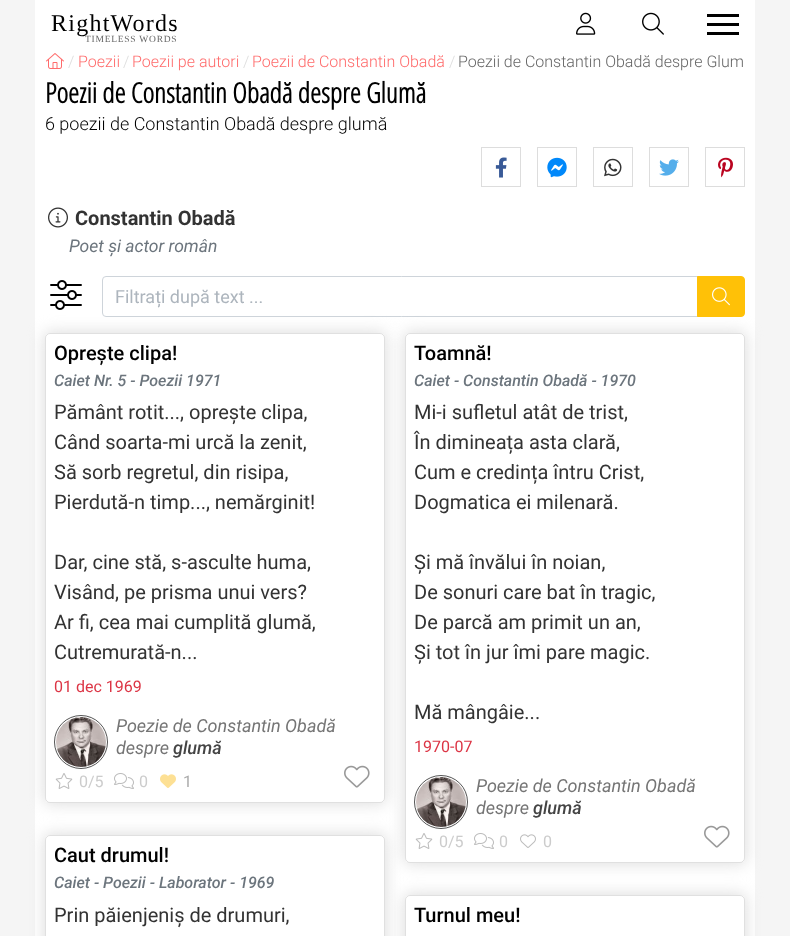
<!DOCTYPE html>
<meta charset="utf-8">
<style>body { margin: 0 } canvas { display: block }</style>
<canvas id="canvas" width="790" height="936"></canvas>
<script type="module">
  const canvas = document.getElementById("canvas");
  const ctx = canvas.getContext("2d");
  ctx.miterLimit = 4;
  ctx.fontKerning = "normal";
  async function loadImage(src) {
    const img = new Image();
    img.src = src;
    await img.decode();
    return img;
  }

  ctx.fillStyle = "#f5f5f5";
  ctx.fillRect(0, 0, 790, 936);
  ctx.fillStyle = "#ffffff";
  ctx.fillRect(35, 0, 720, 936);
  ctx.letterSpacing = "1.25px";
  ctx.font = "24px Liberation Serif";
  ctx.fillStyle = "#000000";
  ctx.fillText("RightWords", 51, 31);
  ctx.letterSpacing = "0.75px";
  ctx.font = "9.5px Liberation Serif";
  ctx.fillStyle = "#666666";
  ctx.fillText("TIMELESS WORDS", 85, 42);
  ctx.drawImage(await loadImage("img1.png"), 576, 12, 20, 23);
  ctx.drawImage(await loadImage("img2.png"), 642, 12, 22, 23);
  ctx.fillStyle = "#000000";
  ctx.fillRect(707, 14, 32, 3);
  ctx.fillRect(707, 23, 32, 3);
  ctx.fillRect(707, 32, 32, 3);
  ctx.drawImage(await loadImage("img3.png"), 46, 53, 18, 16);
  ctx.letterSpacing = "0px";
  ctx.font = "300 16px Roboto";
  ctx.fillStyle = "#dddddd";
  ctx.fillText("/", 68, 67);
  ctx.fillStyle = "#ff6b6b";
  ctx.fillText("Poezii", 78, 67);
  ctx.fillStyle = "#dddddd";
  ctx.fillText("/", 123, 67);
  ctx.fillStyle = "#ff6b6b";
  ctx.fillText("Poezii pe autori", 132, 67);
  ctx.fillStyle = "#dddddd";
  ctx.fillText("/", 243, 67);
  ctx.fillStyle = "#ff6b6b";
  ctx.fillText("Poezii de Constantin Obadă", 252, 67);
  ctx.fillStyle = "#dddddd";
  ctx.fillText("/", 449, 67);
  ctx.fillStyle = "#666666";
  ctx.fillText("Poezii de Constantin Obadă despre Glum", 458, 67);
  ctx.font = "bold 28px Open Sans Condensed";
  ctx.fillStyle = "#000000";
  ctx.fillText("Poezii de Constantin Obadă despre Glumă", 45, 103);
  ctx.font = "300 18px Roboto";
  ctx.fillText("6 poezii de Constantin Obadă despre glumă", 45, 130);
  ctx.strokeStyle = "#dddddd";
  ctx.strokeRect(481.5, 147.5, 39, 39);
  ctx.drawImage(await loadImage("img4.png"), 495, 157, 12, 21);
  ctx.strokeRect(537.5, 147.5, 39, 39);
  ctx.drawImage(await loadImage("img5.png"), 547, 157, 20, 21);
  ctx.strokeRect(593.5, 147.5, 39, 39);
  ctx.drawImage(await loadImage("img6.png"), 604, 158, 18, 19);
  ctx.strokeRect(649.5, 147.5, 39, 39);
  ctx.drawImage(await loadImage("img7.png"), 659, 159, 20, 17);
  ctx.strokeRect(705.5, 147.5, 39, 39);
  ctx.drawImage(await loadImage("img8.png"), 718, 157, 15, 21);
  ctx.drawImage(await loadImage("img9.png"), 48, 207, 20, 21);
  ctx.font = "bold 20px Roboto";
  ctx.fillStyle = "#333333";
  ctx.fillText("Constantin Obadă", 75, 225);
  ctx.font = "italic 17.5px Roboto";
  ctx.fillStyle = "#6c757d";
  ctx.fillText("Poet și actor român", 69, 252);
  ctx.drawImage(await loadImage("img10.png"), 50, 280, 32, 30);
  ctx.beginPath();
  ctx.roundRect(102.5, 276.5, 595, 40, [3.5, 0, 0, 3.5]);
  ctx.strokeStyle = "#ced4da";
  ctx.stroke();
  ctx.font = "18px Roboto";
  ctx.fillStyle = "#adb5bd";
  ctx.fillText("Filtrați după text ...", 115, 303);
  ctx.fillStyle = "#dddddd";
  ctx.filter = "blur(7.5px)";
  ctx.beginPath();
  ctx.roundRect(44, 332, 342, 472, 6);
  ctx.fill();
  ctx.filter = "none";
  ctx.fillStyle = "#ffffff";
  ctx.beginPath();
  ctx.roundRect(45, 333, 340, 470, 5);
  ctx.fill();
  ctx.beginPath();
  ctx.roundRect(45.5, 333.5, 339, 469, 4.5);
  ctx.strokeStyle = "rgba(0, 0, 0, 0.12)";
  ctx.stroke();
  ctx.fillStyle = "#dddddd";
  ctx.filter = "blur(7.5px)";
  ctx.beginPath();
  ctx.roundRect(44, 834, 342, 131, 6);
  ctx.fill();
  ctx.filter = "none";
  ctx.fillStyle = "#ffffff";
  ctx.beginPath();
  ctx.roundRect(45, 835, 340, 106, 5);
  ctx.fill();
  ctx.beginPath();
  ctx.roundRect(45.5, 835.5, 339, 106, 4.5);
  ctx.stroke();
  ctx.fillStyle = "#dddddd";
  ctx.filter = "blur(7.5px)";
  ctx.beginPath();
  ctx.roundRect(404, 332, 342, 532, 6);
  ctx.fill();
  ctx.filter = "none";
  ctx.fillStyle = "#ffc107";
  ctx.beginPath();
  ctx.roundRect(697.5, 276.5, 47, 40, [0, 3.5, 3.5, 0]);
  ctx.fill();
  ctx.strokeStyle = "#ffc107";
  ctx.stroke();
  ctx.drawImage(await loadImage("img11.png"), 712, 287, 18, 19);
  ctx.font = "500 20px Roboto";
  ctx.fillStyle = "#000000";
  ctx.fillText("Oprește clipa!", 54, 360);
  ctx.font = "italic 500 16px Roboto";
  ctx.fillStyle = "#6c757d";
  ctx.fillText("Caiet Nr. 5 - Poezii 1971", 54, 386);
  ctx.font = "20px Roboto";
  ctx.fillStyle = "#333333";
  ctx.fillText("Pământ rotit..., oprește clipa,", 54, 419);
  ctx.fillText("Când soarta-mi urcă la zenit,", 54, 449);
  ctx.fillText("Să sorb regretul, din risipa,", 54, 479);
  ctx.fillText("Pierdută-n timp..., nemărginit!", 54, 509);
  ctx.fillText("Dar, cine stă, s-asculte huma,", 54, 569);
  ctx.fillText("Visând, pe prisma unui vers?", 54, 599);
  ctx.fillText("Ar fi, cea mai cumplită glumă,", 54, 629);
  ctx.fillText("Cutremurată-n...", 54, 659);
  ctx.font = "16px Roboto";
  ctx.fillStyle = "#dc3545";
  ctx.fillText("01 dec 1969", 54, 692);
  ctx.beginPath();
  ctx.arc(81, 742, 26.5, 0, Math.PI * 2);
  ctx.strokeStyle = "#555555";
  ctx.stroke();
  ctx.drawImage(await loadImage("img12.png"), 56, 717, 50, 50);
  ctx.font = "italic 18px Roboto";
  ctx.fillStyle = "#757575";
  ctx.fillText("Poezie de Constantin Obadă", 116, 732);
  ctx.fillText("despre", 116, 754);
  ctx.font = "italic 500 18px Roboto";
  ctx.fillStyle = "#444444";
  ctx.fillText("glumă", 173, 754);
  ctx.drawImage(await loadImage("img13.png"), 55, 773, 18, 16);
  ctx.font = "16px Roboto";
  ctx.fillStyle = "#cccccc";
  ctx.fillText("0/5", 79, 787);
  ctx.drawImage(await loadImage("img14.png"), 114, 773, 20, 16);
  ctx.fillText("0", 139, 787);
  ctx.drawImage(await loadImage("img15.png"), 160, 774, 16, 14);
  ctx.fillStyle = "#aaaaaa";
  ctx.fillText("1", 183, 787);
  ctx.drawImage(await loadImage("img16.png"), 344, 765, 26, 23);
  ctx.fillStyle = "#ffffff";
  ctx.beginPath();
  ctx.roundRect(405, 333, 340, 530, 5);
  ctx.fill();
  ctx.beginPath();
  ctx.roundRect(405.5, 333.5, 339, 529, 4.5);
  ctx.strokeStyle = "rgba(0, 0, 0, 0.12)";
  ctx.stroke();
  ctx.font = "500 20px Roboto";
  ctx.fillStyle = "#000000";
  ctx.fillText("Toamnă!", 414, 360);
  ctx.font = "italic 500 16px Roboto";
  ctx.fillStyle = "#6c757d";
  ctx.fillText("Caiet - Constantin Obadă - 1970", 414, 386);
  ctx.font = "20px Roboto";
  ctx.fillStyle = "#333333";
  ctx.fillText("Mi-i sufletul atât de trist,", 414, 419);
  ctx.fillText("În dimineața asta clară,", 414, 449);
  ctx.fillText("Cum e credința întru Crist,", 414, 479);
  ctx.fillText("Dogmatica ei milenară.", 414, 509);
  ctx.fillText("Și mă învălui în noian,", 414, 569);
  ctx.fillText("De sonuri care bat în tragic,", 414, 599);
  ctx.fillText("De parcă am primit un an,", 414, 629);
  ctx.fillText("Și tot în jur îmi pare magic.", 414, 659);
  ctx.fillText("Mă mângâie...", 414, 719);
  ctx.font = "16px Roboto";
  ctx.fillStyle = "#dc3545";
  ctx.fillText("1970-07", 414, 752);
  ctx.beginPath();
  ctx.arc(441, 802, 26.5, 0, Math.PI * 2);
  ctx.strokeStyle = "#555555";
  ctx.stroke();
  ctx.drawImage(await loadImage("img17.png"), 416, 777, 50, 50);
  ctx.font = "italic 18px Roboto";
  ctx.fillStyle = "#757575";
  ctx.fillText("Poezie de Constantin Obadă", 476, 792);
  ctx.fillText("despre", 476, 814);
  ctx.font = "italic 500 18px Roboto";
  ctx.fillStyle = "#444444";
  ctx.fillText("glumă", 533, 814);
  ctx.drawImage(await loadImage("img13.png"), 415, 833, 18, 16);
  ctx.font = "16px Roboto";
  ctx.fillStyle = "#cccccc";
  ctx.fillText("0/5", 439, 847);
  ctx.drawImage(await loadImage("img14.png"), 474, 833, 20, 16);
  ctx.fillText("0", 499, 847);
  ctx.drawImage(await loadImage("img18.png"), 520, 834, 16, 14);
  ctx.fillText("0", 543, 847);
  ctx.drawImage(await loadImage("img16.png"), 704, 825, 26, 23);
  ctx.font = "500 20px Roboto";
  ctx.fillStyle = "#000000";
  ctx.fillText("Caut drumul!", 54, 862);
  ctx.font = "italic 500 16px Roboto";
  ctx.fillStyle = "#6c757d";
  ctx.fillText("Caiet - Poezii - Laborator - 1969", 54, 888);
  ctx.font = "20px Roboto";
  ctx.fillStyle = "#333333";
  ctx.fillText("Prin păienjeniș de drumuri,", 54, 922);
  ctx.fillStyle = "#dddddd";
  ctx.filter = "blur(7.5px)";
  ctx.beginPath();
  ctx.roundRect(404, 894, 342, 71, 6);
  ctx.fill();
  ctx.filter = "none";
  ctx.fillStyle = "#ffffff";
  ctx.beginPath();
  ctx.roundRect(405, 895, 340, 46, 5);
  ctx.fill();
  ctx.beginPath();
  ctx.roundRect(405.5, 895.5, 339, 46, 4.5);
  ctx.strokeStyle = "rgba(0, 0, 0, 0.12)";
  ctx.stroke();
  ctx.font = "500 20px Roboto";
  ctx.fillStyle = "#000000";
  ctx.fillText("Turnul meu!", 414, 922);
</script>
